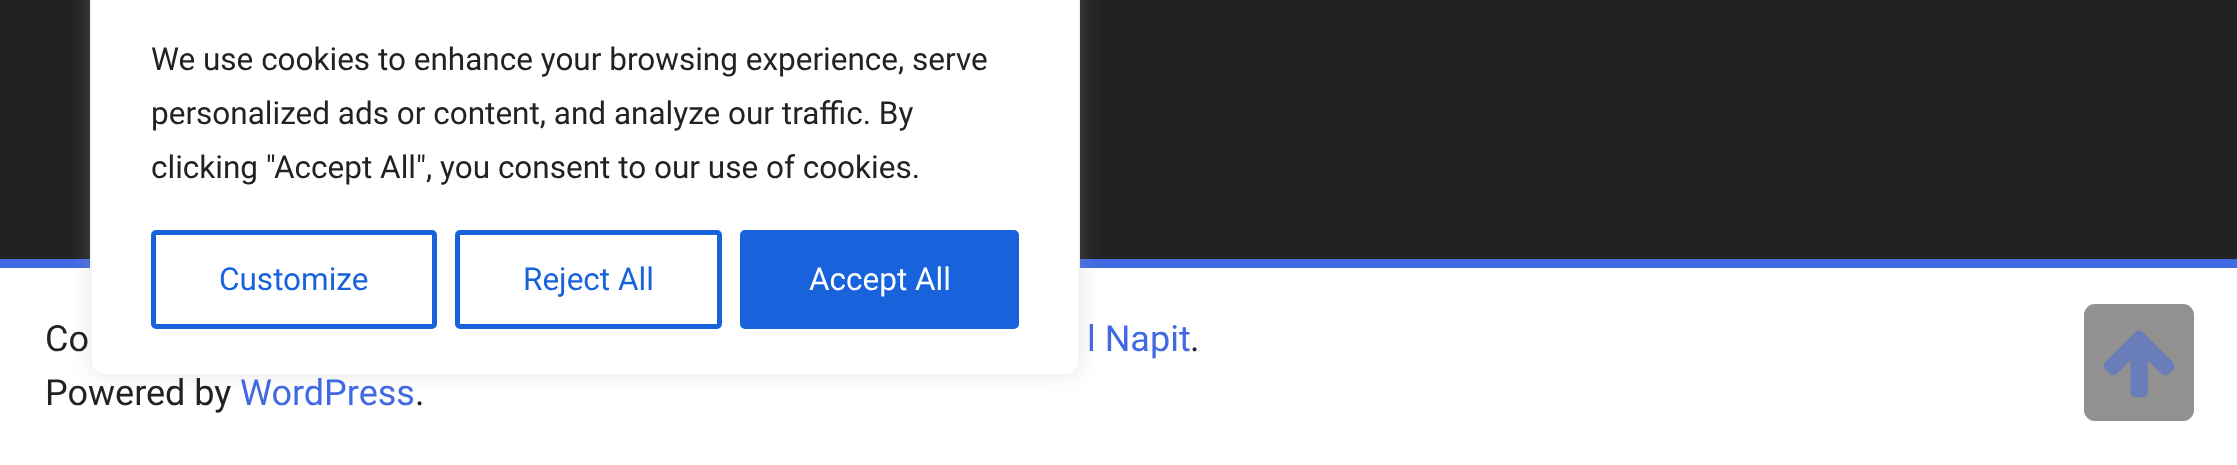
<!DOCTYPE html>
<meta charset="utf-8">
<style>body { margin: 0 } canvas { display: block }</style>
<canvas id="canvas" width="2237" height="465"></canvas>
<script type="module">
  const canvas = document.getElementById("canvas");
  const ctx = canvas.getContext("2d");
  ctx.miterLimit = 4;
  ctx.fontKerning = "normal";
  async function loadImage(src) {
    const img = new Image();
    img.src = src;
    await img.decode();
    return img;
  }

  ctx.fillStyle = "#222222";
  ctx.fillRect(0, 0, 2237, 465);
  ctx.fillStyle = "#ffffff";
  ctx.fillRect(0, 268, 2237, 197);
  ctx.fillStyle = "#4169e1";
  ctx.fillRect(0, 259, 2237, 9);
  ctx.fillStyle = "rgba(172, 171, 171, 0.3)";
  ctx.filter = "blur(11px)";
  ctx.beginPath();
  ctx.roundRect(90, -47, 990, 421, 14);
  ctx.fill();
  ctx.filter = "none";
  ctx.fillStyle = "#ffffff";
  ctx.beginPath();
  ctx.roundRect(91, -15, 988, 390, 13);
  ctx.fill();
  ctx.strokeStyle = "#f4f4f4";
  ctx.lineWidth = 2;
  ctx.stroke();
  ctx.font = "31.5px Roboto";
  ctx.fillStyle = "#222222";
  ctx.fillText("We use cookies to enhance your browsing experience, serve", 151, 70);
  ctx.fillText("personalized ads or content, and analyze our traffic. By", 151, 124);
  ctx.fillText("clicking \"Accept All\", you consent to our use of cookies.", 151, 178);
  ctx.beginPath();
  ctx.roundRect(153.5, 232.5, 281, 94, 2.5);
  ctx.strokeStyle = "#1863dc";
  ctx.lineWidth = 5;
  ctx.stroke();
  ctx.fillStyle = "#1863dc";
  ctx.fillText("Customize", 219, 290);
  ctx.beginPath();
  ctx.roundRect(457.5, 232.5, 262, 94, 2.5);
  ctx.stroke();
  ctx.fillText("Reject All", 523, 290);
  ctx.beginPath();
  ctx.roundRect(742.5, 232.5, 274, 94, 2.5);
  ctx.fill();
  ctx.stroke();
  ctx.fillStyle = "#ffffff";
  ctx.fillText("Accept All", 809, 290);
  ctx.font = "36px Roboto";
  ctx.fillStyle = "#222222";
  ctx.fillText("Co", 45, 351);
  ctx.fillStyle = "#4169e1";
  ctx.fillText("l Napit", 1087, 351);
  ctx.fillStyle = "#222222";
  ctx.fillText(".", 1190, 351);
  ctx.fillText("Powered by", 45, 405);
  ctx.fillStyle = "#4169e1";
  ctx.fillText("WordPress", 240, 405);
  ctx.fillStyle = "#222222";
  ctx.fillText(".", 415, 405);
  ctx.fillStyle = "#919191";
  ctx.beginPath();
  ctx.roundRect(2084, 304, 110, 117, 11);
  ctx.fill();
  ctx.drawImage(await loadImage("img1.png"), 2104, 330, 71, 68);
</script>
